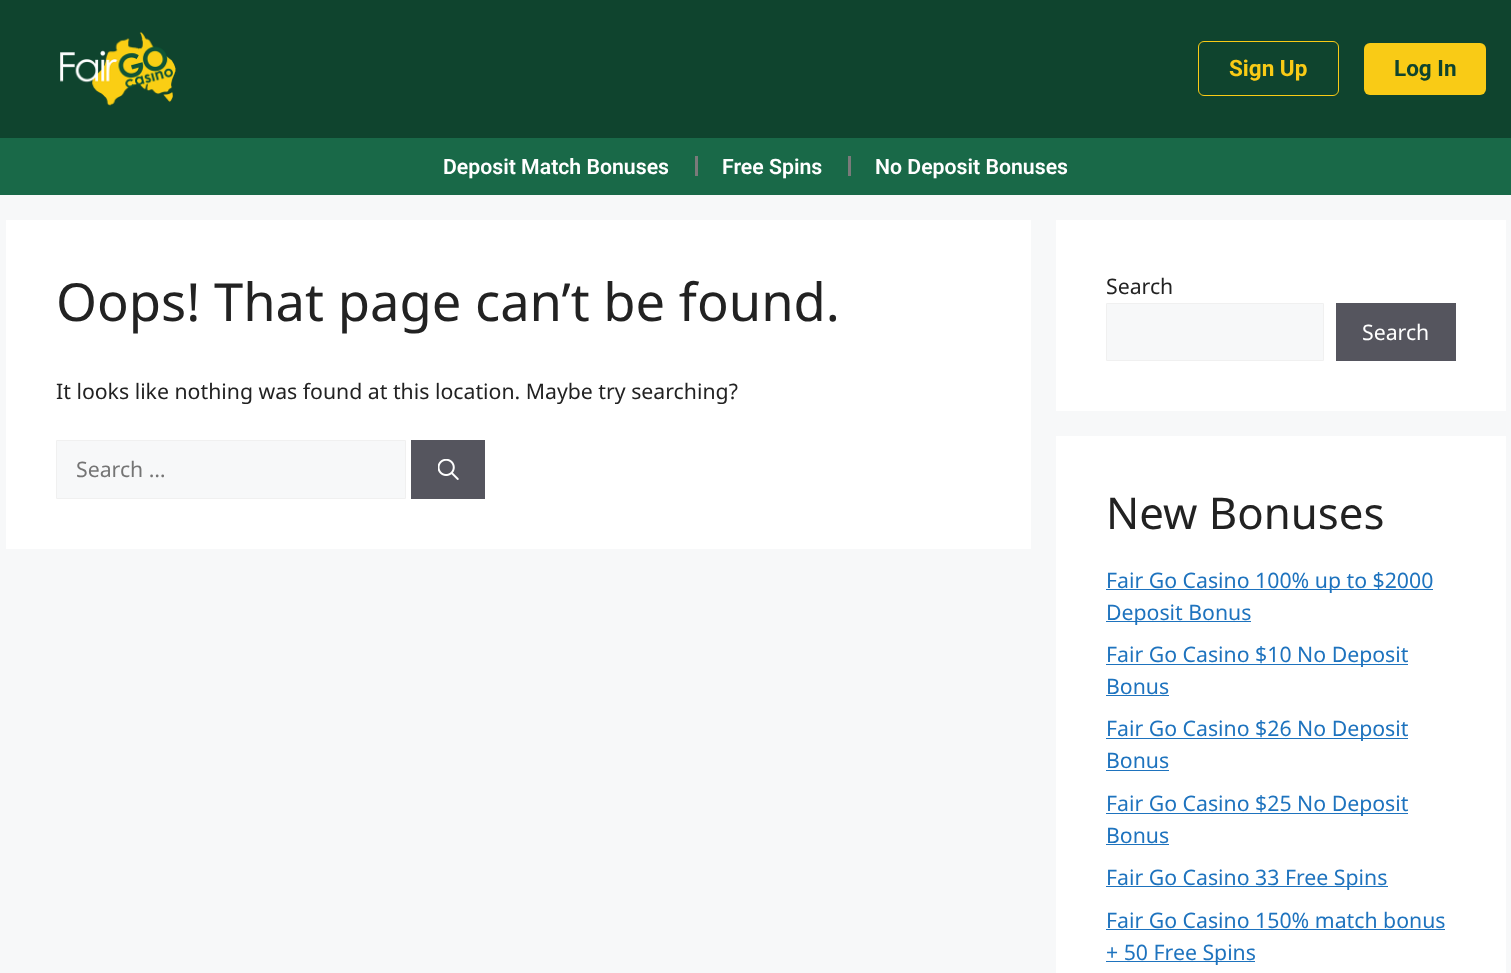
<!DOCTYPE html>
<meta charset="utf-8">
<style>body { margin: 0 } canvas { display: block }</style>
<canvas id="canvas" width="1511" height="973"></canvas>
<script type="module">
  const canvas = document.getElementById("canvas");
  const ctx = canvas.getContext("2d");
  ctx.miterLimit = 4;
  ctx.fontKerning = "normal";
  async function loadImage(src) {
    const img = new Image();
    img.src = src;
    await img.decode();
    return img;
  }

  ctx.fillStyle = "#f7f8f9";
  ctx.fillRect(0, 0, 1511, 973);
  ctx.fillStyle = "#0f442e";
  ctx.fillRect(0, 0, 1511, 138);
  ctx.drawImage(await loadImage("img1.png"), 60, 31, 116, 75);
  ctx.beginPath();
  ctx.roundRect(1198.5, 41.5, 140, 54, 5.5);
  ctx.strokeStyle = "#f9cb16";
  ctx.stroke();
  ctx.font = "bold 22.5px Roboto";
  ctx.fillStyle = "#f9cb16";
  ctx.fillText("Sign Up", 1229, 76);
  ctx.beginPath();
  ctx.roundRect(1364, 43, 122, 52, 6);
  ctx.fill();
  ctx.fillStyle = "#0f442e";
  ctx.fillText("Log In", 1394, 76);
  ctx.fillStyle = "#196948";
  ctx.fillRect(0, 138, 1511, 57);
  ctx.font = "600 21.25px Roboto";
  ctx.fillStyle = "#ffffff";
  ctx.fillText("Deposit Match Bonuses", 443, 174);
  ctx.fillStyle = "#7a7a7a";
  ctx.fillRect(695, 156, 3, 20);
  ctx.fillStyle = "#ffffff";
  ctx.fillText("Free Spins", 722, 174);
  ctx.fillStyle = "#7a7a7a";
  ctx.fillRect(848, 156, 3, 20);
  ctx.fillStyle = "#ffffff";
  ctx.fillText("No Deposit Bonuses", 875, 174);
  ctx.fillRect(6, 220, 1025, 329);
  ctx.font = "52.5px Noto Sans";
  ctx.fillStyle = "#222222";
  ctx.fillText("Oops! That page can’t be found.", 56, 321);
  ctx.font = "21.25px Noto Sans";
  ctx.fillText("It looks like nothing was found at this location. Maybe try searching?", 56, 399);
  ctx.fillStyle = "#f7f8f9";
  ctx.beginPath();
  ctx.rect(56.5, 440.5, 349, 58);
  ctx.fill();
  ctx.strokeStyle = "#f0f0f0";
  ctx.stroke();
  ctx.fillStyle = "#757575";
  ctx.fillText("Search …", 76, 477);
  ctx.fillStyle = "#55555e";
  ctx.fillRect(411, 440, 74, 59);
  ctx.drawImage(await loadImage("img2.png"), 438, 459, 21, 21);
  ctx.fillStyle = "#ffffff";
  ctx.fillRect(1056, 220, 450, 191);
  ctx.fillStyle = "#222222";
  ctx.fillText("Search", 1106, 294);
  ctx.fillStyle = "#f7f8f9";
  ctx.beginPath();
  ctx.rect(1106.5, 303.5, 217, 57);
  ctx.fill();
  ctx.stroke();
  ctx.fillStyle = "#55555e";
  ctx.fillRect(1336, 303, 120, 58);
  ctx.fillStyle = "#ffffff";
  ctx.fillText("Search", 1362, 340);
  ctx.fillRect(1056, 436, 450, 537);
  ctx.font = "43.75px Noto Sans";
  ctx.fillStyle = "#222222";
  ctx.fillText("New Bonuses", 1106, 529);
  ctx.fillStyle = "#1e73be";
  ctx.fillRect(1106, 589, 327, 1);
  ctx.font = "21.25px Noto Sans";
  ctx.fillText("Fair Go Casino 100% up to $2000", 1106, 588);
  ctx.fillRect(1106, 621, 145, 1);
  ctx.fillText("Deposit Bonus", 1106, 620);
  ctx.fillRect(1106, 664, 302, 1);
  ctx.fillText("Fair Go Casino $10 No Deposit", 1106, 662);
  ctx.fillText("Bonus", 1106, 694);
  ctx.fillRect(1106, 695, 63, 1);
  ctx.fillRect(1106, 738, 302, 1);
  ctx.fillText("Fair Go Casino $26 No Deposit", 1106, 736);
  ctx.fillText("Bonus", 1106, 768);
  ctx.fillRect(1106, 770, 63, 1);
  ctx.fillRect(1106, 813, 302, 1);
  ctx.fillText("Fair Go Casino $25 No Deposit", 1106, 811);
  ctx.fillText("Bonus", 1106, 843);
  ctx.fillRect(1106, 844, 63, 1);
  ctx.fillRect(1106, 886, 282, 1);
  ctx.fillText("Fair Go Casino 33 Free Spins", 1106, 885);
  ctx.fillText("Fair Go Casino 150% match bonus", 1106, 928);
  ctx.fillRect(1106, 929, 339, 1);
  ctx.fillRect(1106, 961, 149, 1);
  ctx.fillText("+ 50 Free Spins", 1106, 960);
</script>
